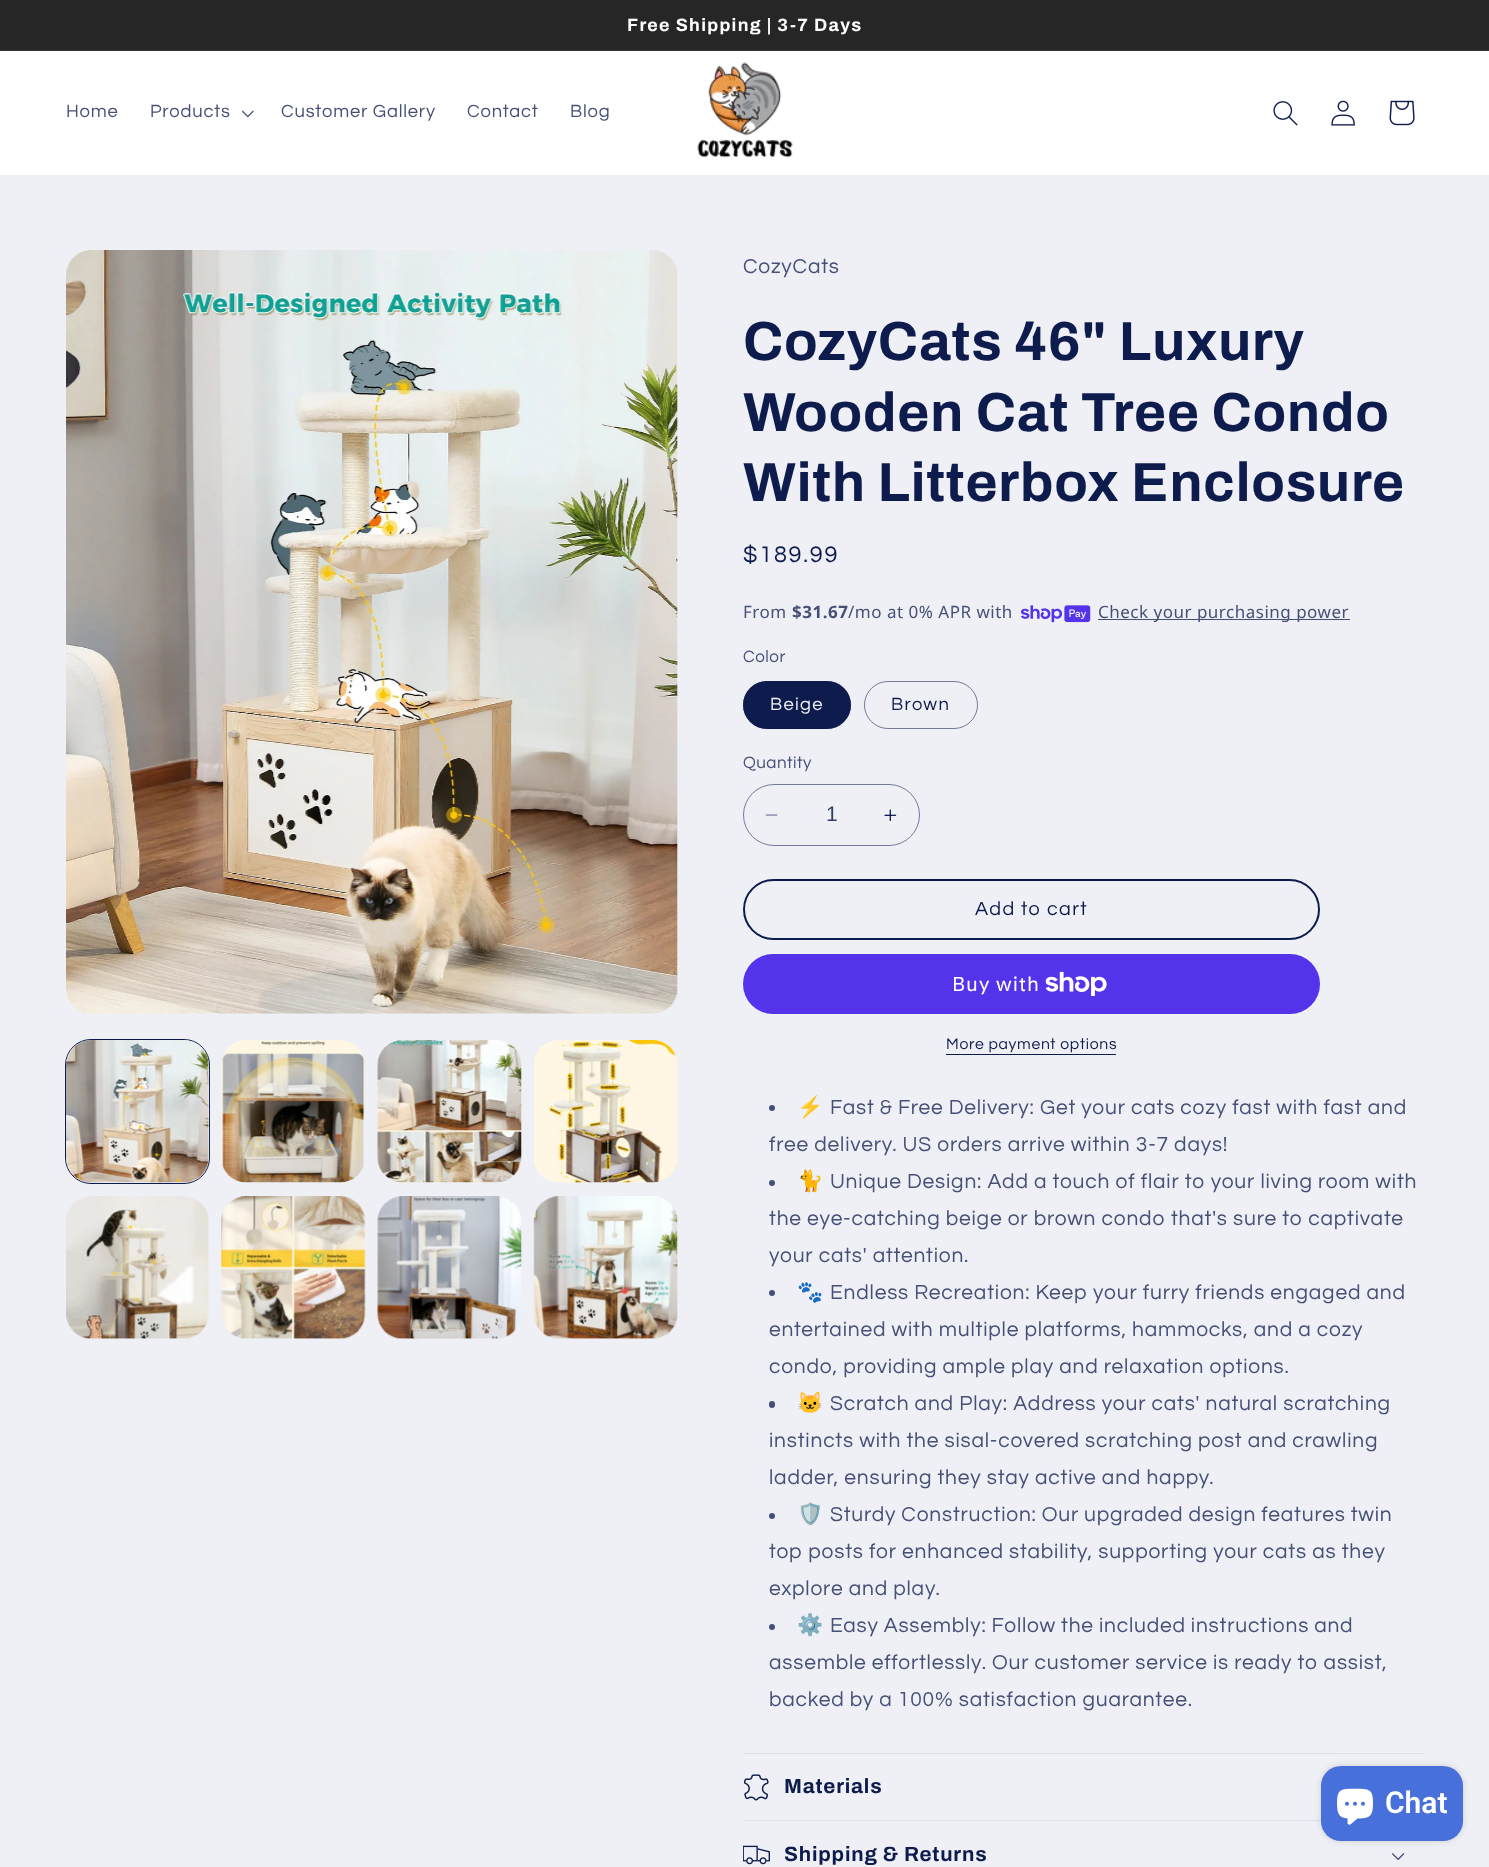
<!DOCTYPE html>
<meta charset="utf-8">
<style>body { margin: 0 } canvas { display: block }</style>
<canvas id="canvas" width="1489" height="1867"></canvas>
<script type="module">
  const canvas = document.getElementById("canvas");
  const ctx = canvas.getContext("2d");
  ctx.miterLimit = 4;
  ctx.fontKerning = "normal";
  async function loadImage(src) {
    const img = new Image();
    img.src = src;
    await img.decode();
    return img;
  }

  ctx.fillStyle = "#eff0f5";
  ctx.fillRect(0, 0, 1489, 1867);
  ctx.fillStyle = "#262626";
  ctx.fillRect(0, 0, 1489, 50);
  ctx.fillStyle = "#373737";
  ctx.fillRect(0, 50, 1489, 1);
  ctx.letterSpacing = "1.3px";
  ctx.font = "bold 17.9px Archivo";
  ctx.fillStyle = "#ffffff";
  ctx.fillText("Free Shipping | 3-7 Days", 627, 31);
  ctx.fillRect(0, 51, 1489, 124);
  ctx.letterSpacing = "0.8px";
  ctx.font = "18.4px Questrial";
  ctx.fillStyle = "#465077";
  ctx.fillText("Home", 66, 117);
  ctx.fillText("Products", 150, 117);
  ctx.drawImage(await loadImage("img1.png"), 242, 110, 12, 8);
  ctx.fillText("Customer Gallery", 281, 117);
  ctx.fillText("Contact", 467, 117);
  ctx.fillText("Blog", 570, 117);
  ctx.drawImage(await loadImage("img2.png"), 697, 62, 96, 96);
  ctx.drawImage(await loadImage("img3.png"), 1273, 101, 25, 25);
  ctx.drawImage(await loadImage("img4.png"), 1331, 100, 24, 26);
  ctx.drawImage(await loadImage("img5.png"), 1389, 100, 26, 26);
  ctx.drawImage(await loadImage("img6.png"), 66, 250, 612, 764);
  ctx.beginPath();
  ctx.roundRect(65.5, 1039.5, 144, 144, 25.5);
  ctx.strokeStyle = "#0e1b4d";
  ctx.stroke();
  ctx.drawImage(await loadImage("img7.png"), 66, 1040, 144, 143);
  ctx.drawImage(await loadImage("img8.png"), 221, 1040, 144, 143);
  ctx.drawImage(await loadImage("img9.png"), 377, 1040, 145, 143);
  ctx.drawImage(await loadImage("img10.png"), 533, 1040, 145, 143);
  ctx.drawImage(await loadImage("img11.png"), 66, 1196, 143, 143);
  ctx.drawImage(await loadImage("img12.png"), 221, 1196, 145, 143);
  ctx.drawImage(await loadImage("img13.png"), 377, 1196, 145, 143);
  ctx.drawImage(await loadImage("img14.png"), 533, 1196, 145, 143);
  ctx.font = "21px Questrial";
  ctx.fillText("CozyCats", 743, 273);
  ctx.font = "bold 55px Archivo";
  ctx.fillStyle = "#0e1b4d";
  ctx.fillText("CozyCats 46\" Luxury", 743, 360);
  ctx.fillText("Wooden Cat Tree Condo", 743, 431);
  ctx.fillText("With Litterbox Enclosure", 743, 501);
  ctx.letterSpacing = "1.75px";
  ctx.font = "23.5px Questrial";
  ctx.fillText("$189.99", 743, 562);
  ctx.letterSpacing = "0.5px";
  ctx.font = "17px Noto Sans";
  ctx.fillStyle = "#465077";
  ctx.fillText("From", 743, 618);
  ctx.font = "bold 17px Noto Sans";
  ctx.fillText("$31.67", 792, 618);
  ctx.font = "17px Noto Sans";
  ctx.fillText("/mo at 0% APR with", 848, 618);
  ctx.drawImage(await loadImage("img15.png"), 1021, 605, 70, 18);
  ctx.fillRect(1098, 619, 252, 1);
  ctx.fillText("Check your purchasing power", 1098, 618);
  ctx.font = "17px Questrial";
  ctx.fillText("Color", 743, 662);
  ctx.fillStyle = "#0e1b4d";
  ctx.beginPath();
  ctx.roundRect(743, 681, 108, 48, 24);
  ctx.fill();
  ctx.beginPath();
  ctx.roundRect(743.5, 681.5, 107, 47, 23.5);
  ctx.strokeStyle = "rgba(14, 27, 77, 0.55)";
  ctx.stroke();
  ctx.letterSpacing = "1.3px";
  ctx.font = "18.4px Questrial";
  ctx.fillStyle = "#eff0f5";
  ctx.fillText("Beige", 770, 710);
  ctx.beginPath();
  ctx.roundRect(864.5, 681.5, 113, 47, 23.5);
  ctx.strokeStyle = "#737b99";
  ctx.stroke();
  ctx.fillStyle = "#0e1b4d";
  ctx.fillText("Brown", 891, 710);
  ctx.letterSpacing = "0.5px";
  ctx.font = "17px Questrial";
  ctx.fillStyle = "#465077";
  ctx.fillText("Quantity", 743, 768);
  ctx.drawImage(await loadImage("img16.png"), 765, 814, 13, 2);
  ctx.drawImage(await loadImage("img17.png"), 884, 809, 13, 12);
  ctx.beginPath();
  ctx.roundRect(743.5, 784.5, 176, 61, 30.5);
  ctx.stroke();
  ctx.letterSpacing = "0px";
  ctx.font = "21px Liberation Sans";
  ctx.fillStyle = "#303b66";
  ctx.fillText("1", 826, 821);
  ctx.beginPath();
  ctx.roundRect(744, 880, 575, 59, 29.5);
  ctx.strokeStyle = "#0e1b4d";
  ctx.lineWidth = 2;
  ctx.stroke();
  ctx.letterSpacing = "1.3px";
  ctx.font = "19.75px Questrial";
  ctx.fillStyle = "#0e1b4d";
  ctx.fillText("Add to cart", 975, 915);
  ctx.fillStyle = "#5433eb";
  ctx.beginPath();
  ctx.roundRect(743, 954, 577, 60, 30);
  ctx.fill();
  ctx.letterSpacing = "0.8px";
  ctx.font = "20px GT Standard";
  ctx.fillStyle = "#ffffff";
  ctx.fillText("Buy with", 952, 991);
  ctx.drawImage(await loadImage("img18.png"), 1045, 971, 62, 25);
  ctx.letterSpacing = "0.7px";
  ctx.font = "15.75px Questrial";
  ctx.fillStyle = "#0e1b4d";
  ctx.fillText("More payment options", 946, 1049);
  ctx.fillRect(946, 1054, 170, 1);
  ctx.fillStyle = "#465077";
  ctx.beginPath();
  ctx.arc(772, 1108, 3, 0, Math.PI * 2);
  ctx.fill();
  ctx.letterSpacing = "0.8px";
  ctx.font = "21px Noto Color Emoji";
  ctx.fillText("⚡", 797, 1114);
  ctx.font = "21px Questrial";
  ctx.fillText("Fast & Free Delivery: Get your cats cozy fast with fast and", 830, 1114);
  ctx.fillText("free delivery. US orders arrive within 3-7 days!", 769, 1151);
  ctx.beginPath();
  ctx.arc(772, 1183, 3, 0, Math.PI * 2);
  ctx.fill();
  ctx.font = "21px Noto Color Emoji";
  ctx.fillText("🐈", 797, 1188);
  ctx.font = "21px Questrial";
  ctx.fillText("Unique Design: Add a touch of flair to your living room with", 830, 1188);
  ctx.fillText("the eye-catching beige or brown condo that's sure to captivate", 769, 1225);
  ctx.fillText("your cats' attention.", 769, 1262);
  ctx.beginPath();
  ctx.arc(772, 1293, 3, 0, Math.PI * 2);
  ctx.fill();
  ctx.font = "21px Noto Color Emoji";
  ctx.fillText("🐾", 797, 1299);
  ctx.font = "21px Questrial";
  ctx.fillText("Endless Recreation: Keep your furry friends engaged and", 830, 1299);
  ctx.fillText("entertained with multiple platforms, hammocks, and a cozy", 769, 1336);
  ctx.fillText("condo, providing ample play and relaxation options.", 769, 1373);
  ctx.beginPath();
  ctx.roundRect(769, 1401, 6, 7, 3);
  ctx.fill();
  ctx.font = "21px Noto Color Emoji";
  ctx.fillText("🐱", 797, 1410);
  ctx.font = "21px Questrial";
  ctx.fillText("Scratch and Play: Address your cats' natural scratching", 830, 1410);
  ctx.fillText("instincts with the sisal-covered scratching post and crawling", 769, 1447);
  ctx.fillText("ladder, ensuring they stay active and happy.", 769, 1484);
  ctx.beginPath();
  ctx.arc(772, 1516, 3, 0, Math.PI * 2);
  ctx.fill();
  ctx.font = "21px Noto Color Emoji";
  ctx.fillText("🛡️", 797, 1521);
  ctx.wordSpacing = "-0.25px";
  ctx.font = "21px Questrial";
  ctx.fillText("Sturdy Construction: Our upgraded design features twin", 830, 1521);
  ctx.wordSpacing = "0px";
  ctx.fillText("top posts for enhanced stability, supporting your cats as they", 769, 1558);
  ctx.fillText("explore and play.", 769, 1595);
  ctx.beginPath();
  ctx.arc(772, 1627, 3, 0, Math.PI * 2);
  ctx.fill();
  ctx.font = "21px Noto Color Emoji";
  ctx.fillText("⚙️", 797, 1632);
  ctx.wordSpacing = "-0.25px";
  ctx.font = "21px Questrial";
  ctx.fillText("Easy Assembly: Follow the included instructions and", 830, 1632);
  ctx.wordSpacing = "0px";
  ctx.fillText("assemble effortlessly. Our customer service is ready to assist,", 769, 1669);
  ctx.fillText("backed by a 100% satisfaction guarantee.", 769, 1706);
  ctx.fillStyle = "#dddfe8";
  ctx.fillRect(743, 1753, 681, 1);
  ctx.fillRect(743, 1820, 578, 1);
  ctx.drawImage(await loadImage("img19.png"), 743, 1774, 26, 27);
  ctx.font = "bold 20.6px Archivo";
  ctx.fillStyle = "#0e1b4d";
  ctx.fillText("Materials", 784, 1793);
  ctx.drawImage(await loadImage("img20.png"), 743, 1845, 27, 20);
  ctx.fillText("Shipping & Returns", 784, 1861);
  ctx.drawImage(await loadImage("img21.png"), 1392, 1853, 13, 7);
  ctx.fillStyle = "rgba(0, 0, 0, 0.15)";
  ctx.filter = "blur(3px)";
  ctx.beginPath();
  ctx.roundRect(1321, 1766, 142, 75, 20);
  ctx.fill();
  ctx.filter = "none";
  ctx.fillStyle = "#4770db";
  ctx.beginPath();
  ctx.roundRect(1321, 1766, 142, 75, 20);
  ctx.fill();
  ctx.drawImage(await loadImage("img22.png"), 1337, 1788, 36, 37);
  ctx.letterSpacing = "0px";
  ctx.font = "600 30px Roboto";
  ctx.fillStyle = "#ffffff";
  ctx.fillText("Chat", 1385, 1813);
</script>
